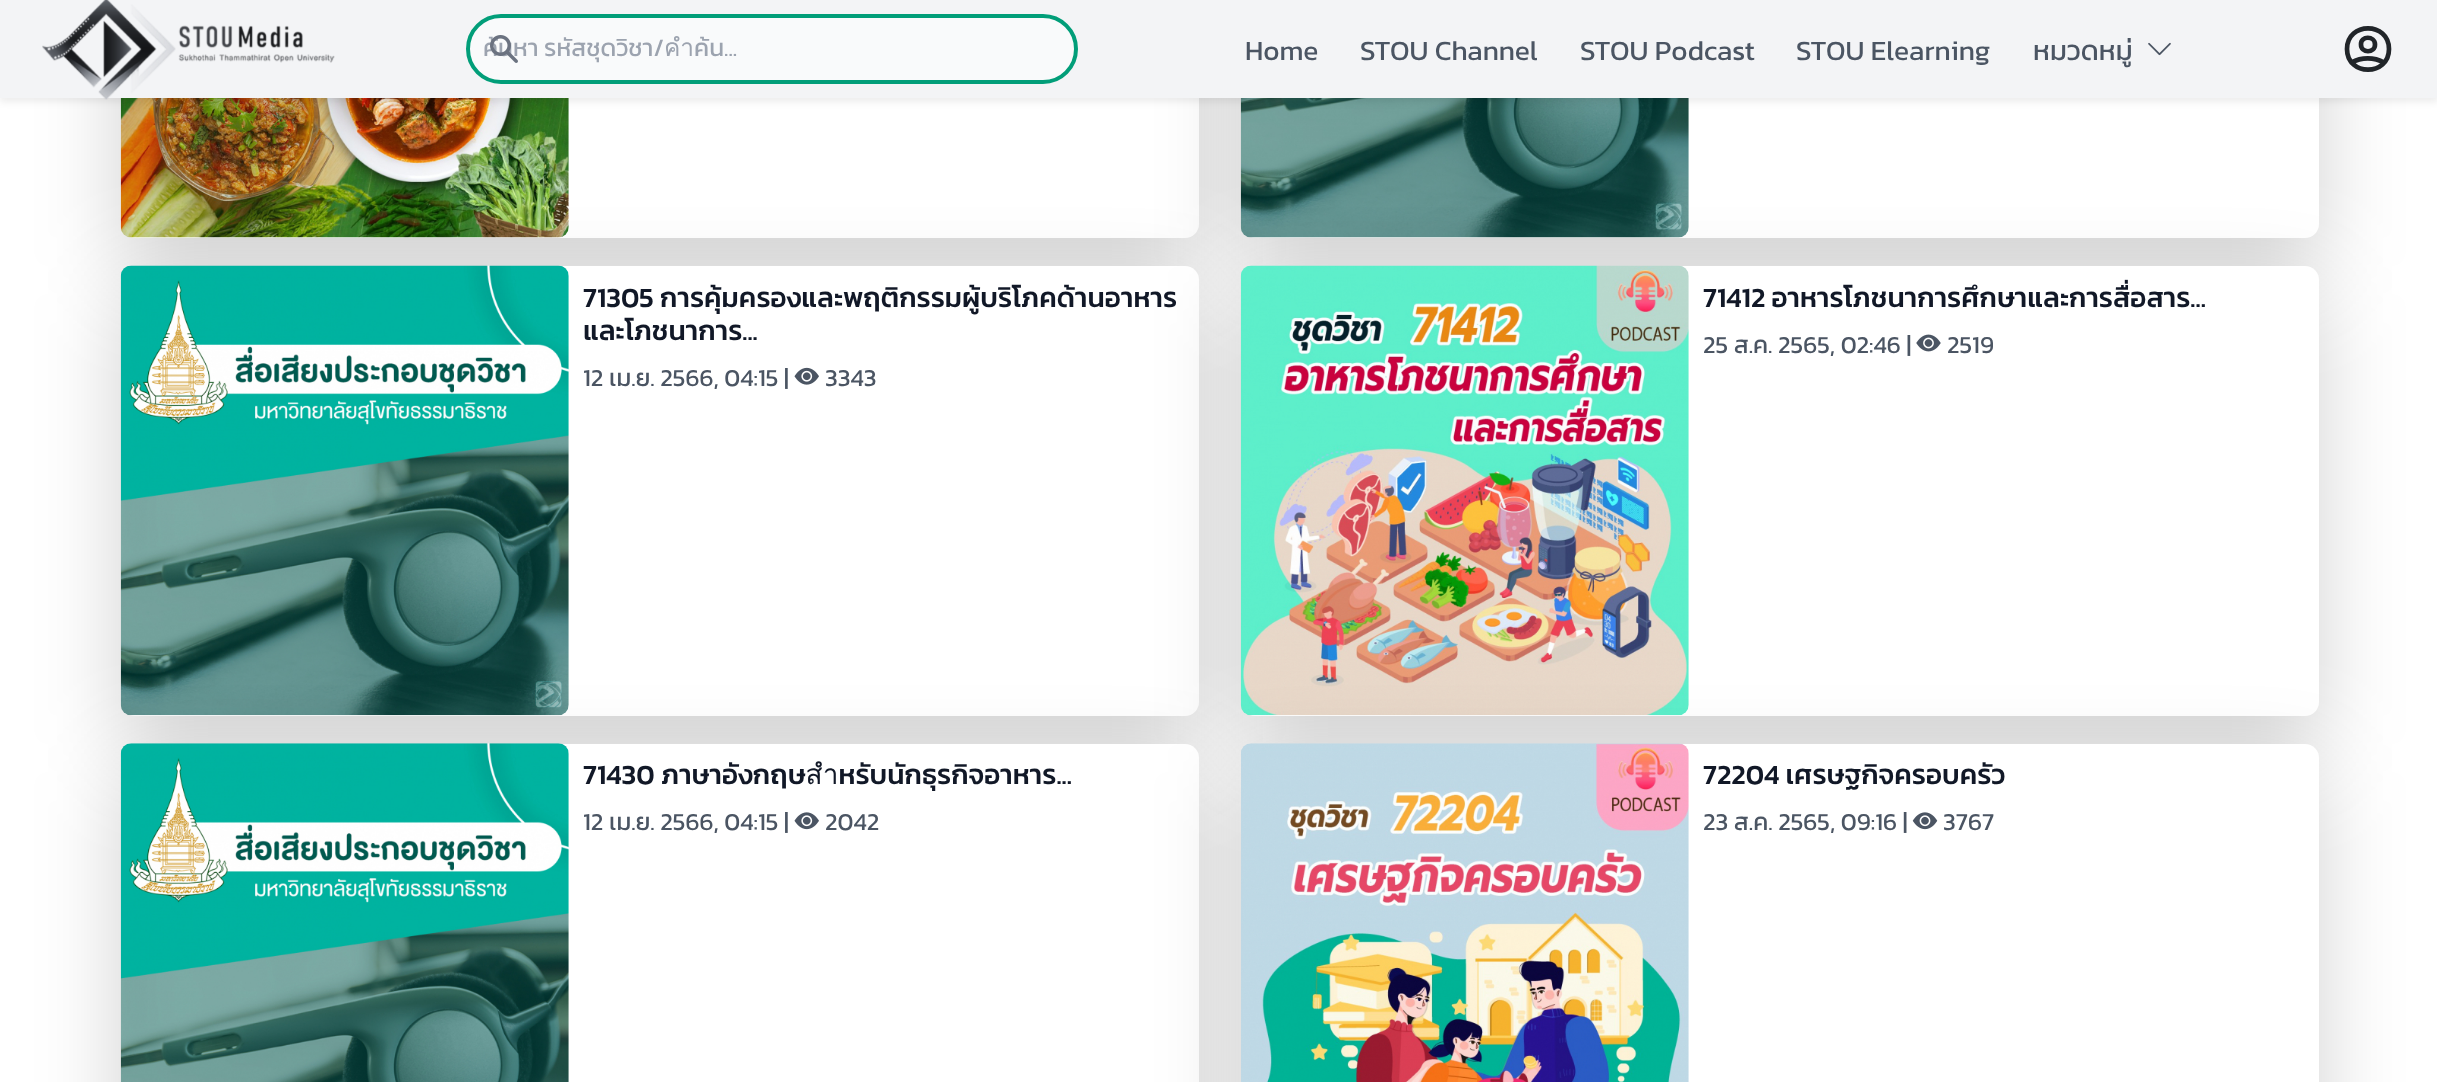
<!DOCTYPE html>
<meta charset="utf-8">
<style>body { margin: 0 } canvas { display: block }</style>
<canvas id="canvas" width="2437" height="1082"></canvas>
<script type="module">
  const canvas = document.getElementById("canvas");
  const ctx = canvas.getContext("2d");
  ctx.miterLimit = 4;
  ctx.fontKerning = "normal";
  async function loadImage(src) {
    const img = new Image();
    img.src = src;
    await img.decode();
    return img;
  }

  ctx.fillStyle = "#ffffff";
  ctx.fillRect(0, 0, 2437, 1082);
  ctx.fillStyle = "rgba(0, 0, 0, 0.18)";
  ctx.filter = "blur(42px)";
  ctx.beginPath();
  ctx.roundRect(121, -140, 1078, 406, 14);
  ctx.fill();
  ctx.filter = "none";
  ctx.fillStyle = "#ffffff";
  ctx.beginPath();
  ctx.roundRect(121, -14, 1078, 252, 14);
  ctx.fill();
  ctx.drawImage(await loadImage("img4.png"), 120, 98, 449, 140);
  ctx.fillStyle = "rgba(0, 0, 0, 0.18)";
  ctx.filter = "blur(42px)";
  ctx.beginPath();
  ctx.roundRect(1241, -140, 1078, 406, 14);
  ctx.fill();
  ctx.filter = "none";
  ctx.fillStyle = "#ffffff";
  ctx.beginPath();
  ctx.roundRect(1241, -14, 1078, 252, 14);
  ctx.fill();
  ctx.drawImage(await loadImage("img5.png"), 1240, 98, 449, 140);
  ctx.fillStyle = "rgba(0, 0, 0, 0.07)";
  ctx.filter = "blur(3.5px)";
  ctx.beginPath();
  ctx.rect(0, 4, 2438, 98);
  ctx.fill();
  ctx.filter = "none";
  ctx.fillStyle = "#f3f4f6";
  ctx.fillRect(0, 0, 2437, 98);
  ctx.drawImage(await loadImage("img1.png"), 42, 0, 293, 100);
  ctx.fillStyle = "#f9fafb";
  ctx.beginPath();
  ctx.roundRect(468, 16, 608, 66, 33);
  ctx.fill();
  ctx.strokeStyle = "#019e79";
  ctx.lineWidth = 4;
  ctx.stroke();
  ctx.save();
  ctx.beginPath();
  ctx.rect(483, 30, 553, 37);
  ctx.clip();
  ctx.font = "24.5px Kanit";
  ctx.fillStyle = "#9ca3af";
  ctx.fillText("ค้นหา รหัสชุดวิชา/คำค้น...", 483, 56);
  ctx.restore();
  ctx.drawImage(await loadImage("img2.png"), 490, 35, 28, 28);
  ctx.font = "28px Kanit";
  ctx.fillStyle = "#4b5563";
  ctx.fillText("Home", 1245, 60);
  ctx.fillText("STOU Channel", 1360, 60);
  ctx.fillText("STOU Podcast", 1580, 60);
  ctx.fillText("STOU Elearning", 1796, 60);
  ctx.fillText("หมวดหมู่", 2033, 60);
  ctx.drawImage(await loadImage("img3.png"), 2148, 42, 23, 14);
  ctx.beginPath();
  ctx.moveTo(2351.5, 62.5);
  ctx.bezierCurveTo(2361.5, 57, 2374, 57, 2384, 62.5);
  ctx.moveTo(2375, 44.5);
  ctx.bezierCurveTo(2375, 53.5, 2361, 53.5, 2361, 44.5);
  ctx.bezierCurveTo(2360.5, 35.5, 2375, 35.5, 2375, 44.5);
  ctx.closePath();
  ctx.moveTo(2389, 49);
  ctx.bezierCurveTo(2389, 76.5, 2347, 76.5, 2347, 49);
  ctx.bezierCurveTo(2347, 21.5, 2389, 21.5, 2389, 49);
  ctx.closePath();
  ctx.strokeStyle = "#212529";
  ctx.lineWidth = 4.7;
  ctx.lineCap = "round";
  ctx.lineJoin = "round";
  ctx.stroke();
  ctx.fillStyle = "rgba(0, 0, 0, 0.18)";
  ctx.filter = "blur(42px)";
  ctx.beginPath();
  ctx.roundRect(121, 294, 1078, 450, 14);
  ctx.fill();
  ctx.filter = "none";
  ctx.fillStyle = "#ffffff";
  ctx.beginPath();
  ctx.roundRect(121, 266, 1078, 450, 14);
  ctx.fill();
  ctx.drawImage(await loadImage("img6.png"), 120, 265, 449, 451);
  ctx.font = "500 28px Kanit";
  ctx.fillStyle = "#111827";
  ctx.fillText("71305 การคุ้มครองและพฤติกรรมผู้บริโภคด้านอาหาร", 583, 307);
  ctx.fillText("และโภชนาการ...", 583, 340);
  ctx.font = "24.5px Kanit";
  ctx.fillStyle = "#4b5563";
  ctx.fillText("12 เม.ย. 2566, 04:15 |", 583, 386);
  ctx.drawImage(await loadImage("img7.png"), 794, 367, 25, 18);
  ctx.fillText("3343", 825, 386);
  ctx.fillStyle = "rgba(0, 0, 0, 0.18)";
  ctx.filter = "blur(42px)";
  ctx.beginPath();
  ctx.roundRect(1241, 294, 1078, 450, 14);
  ctx.fill();
  ctx.filter = "none";
  ctx.fillStyle = "#ffffff";
  ctx.beginPath();
  ctx.roundRect(1241, 266, 1078, 450, 14);
  ctx.fill();
  ctx.drawImage(await loadImage("img8.png"), 1240, 265, 449, 451);
  ctx.font = "500 28px Kanit";
  ctx.fillStyle = "#111827";
  ctx.fillText("71412 อาหารโภชนาการศึกษาและการสื่อสาร...", 1703, 307);
  ctx.font = "24.5px Kanit";
  ctx.fillStyle = "#4b5563";
  ctx.fillText("25 ส.ค. 2565, 02:46 |", 1703, 353);
  ctx.drawImage(await loadImage("img9.png"), 1916, 334, 25, 18);
  ctx.fillText("2519", 1947, 353);
  ctx.fillStyle = "rgba(0, 0, 0, 0.18)";
  ctx.filter = "blur(42px)";
  ctx.beginPath();
  ctx.roundRect(121, 772, 1078, 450, 14);
  ctx.fill();
  ctx.filter = "none";
  ctx.fillStyle = "#ffffff";
  ctx.beginPath();
  ctx.roundRect(121, 744, 1078, 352, 14);
  ctx.fill();
  ctx.drawImage(await loadImage("img10.png"), 120, 743, 449, 339);
  ctx.font = "500 28px Kanit";
  ctx.fillStyle = "#111827";
  ctx.fillText("71430 ภาษาอังกฤษสำหรับนักธุรกิจอาหาร...", 583, 784);
  ctx.font = "24.5px Kanit";
  ctx.fillStyle = "#4b5563";
  ctx.fillText("12 เม.ย. 2566, 04:15 |", 583, 830);
  ctx.drawImage(await loadImage("img11.png"), 794, 812, 25, 18);
  ctx.fillText("2042", 825, 830);
  ctx.fillStyle = "rgba(0, 0, 0, 0.18)";
  ctx.filter = "blur(42px)";
  ctx.beginPath();
  ctx.roundRect(1241, 772, 1078, 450, 14);
  ctx.fill();
  ctx.filter = "none";
  ctx.fillStyle = "#ffffff";
  ctx.beginPath();
  ctx.roundRect(1241, 744, 1078, 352, 14);
  ctx.fill();
  ctx.drawImage(await loadImage("img12.png"), 1241, 743, 448, 339);
  ctx.font = "500 28px Kanit";
  ctx.fillStyle = "#111827";
  ctx.fillText("72204 เศรษฐกิจครอบครัว", 1703, 784);
  ctx.font = "24.5px Kanit";
  ctx.fillStyle = "#4b5563";
  ctx.fillText("23 ส.ค. 2565, 09:16 |", 1703, 830);
  ctx.drawImage(await loadImage("img13.png"), 1912, 812, 26, 18);
  ctx.fillText("3767", 1943, 830);
</script>
